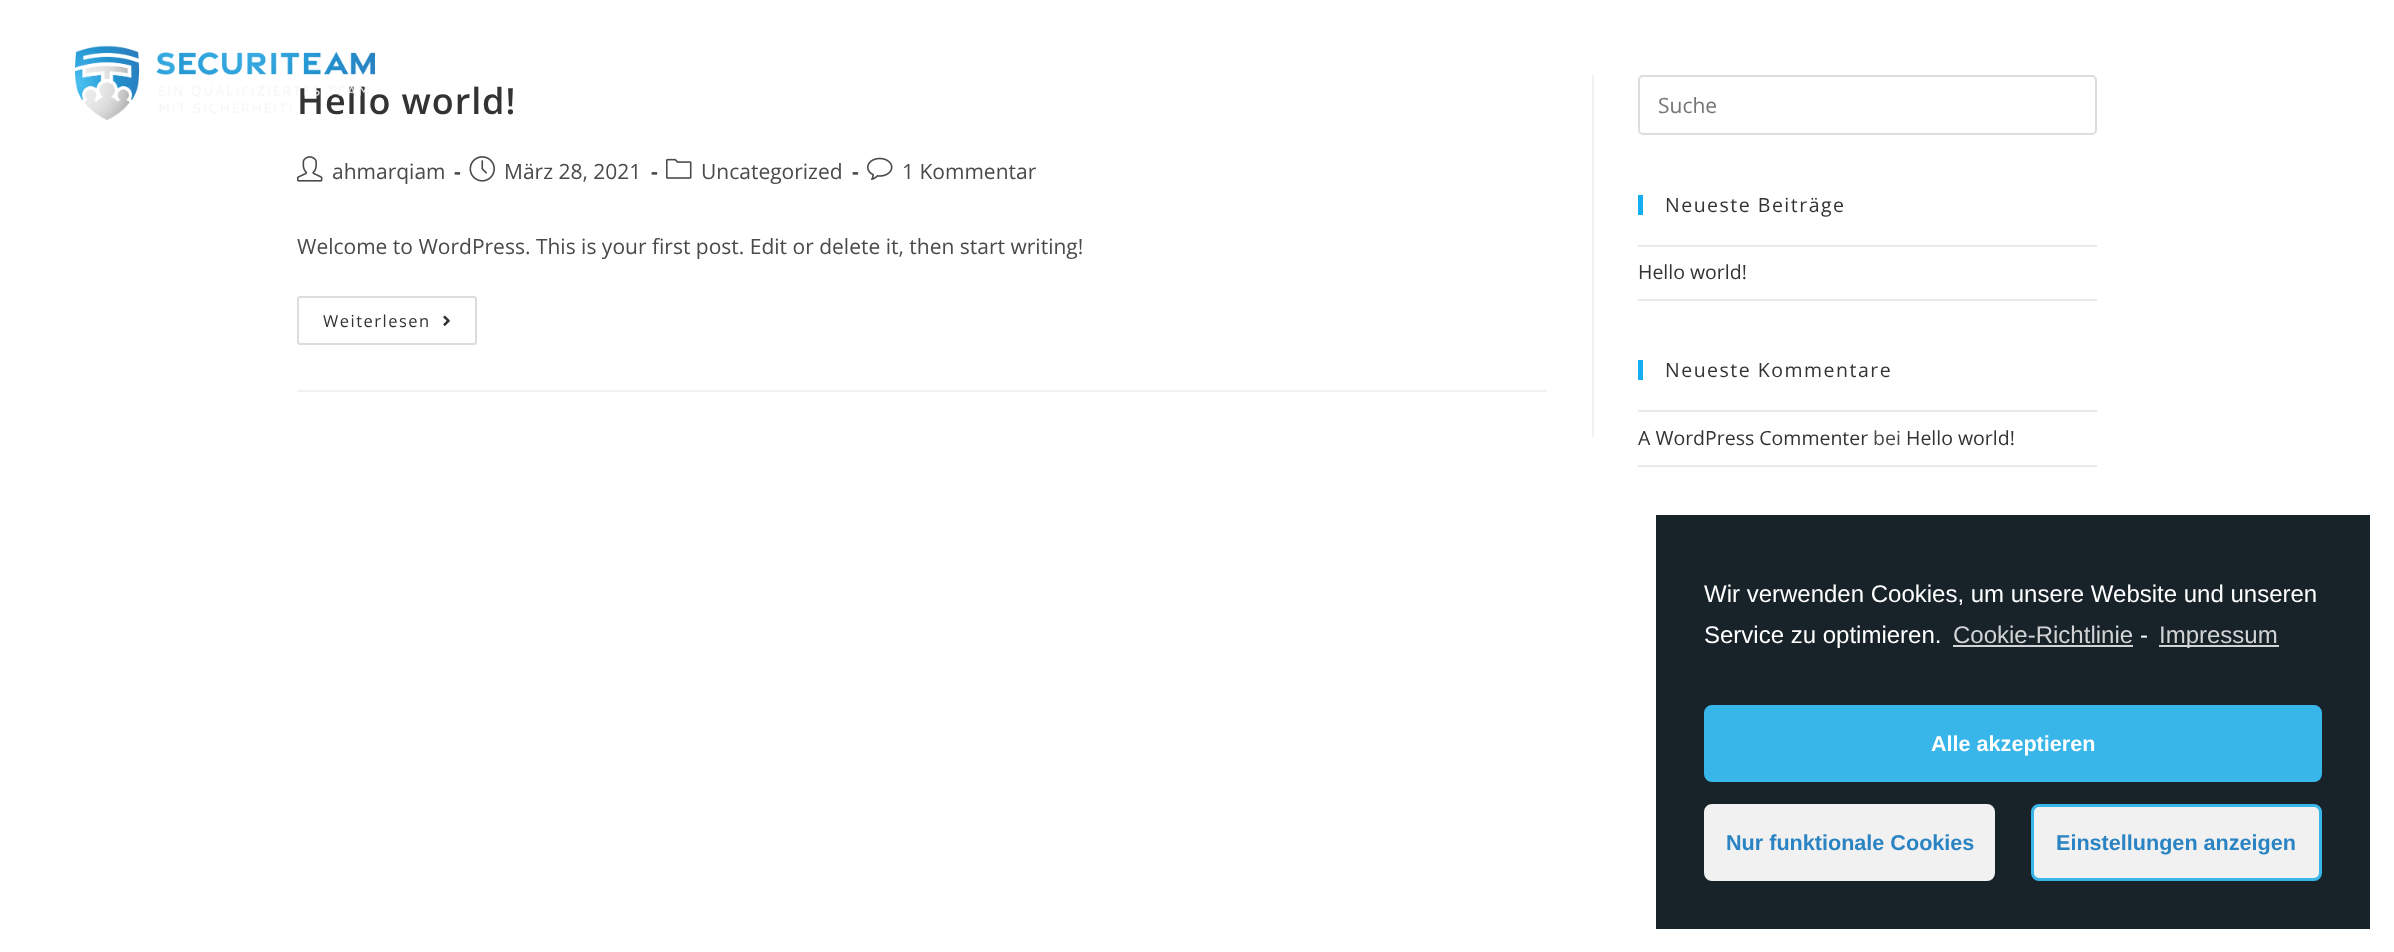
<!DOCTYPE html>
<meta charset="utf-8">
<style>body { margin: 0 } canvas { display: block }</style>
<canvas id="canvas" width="2394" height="952"></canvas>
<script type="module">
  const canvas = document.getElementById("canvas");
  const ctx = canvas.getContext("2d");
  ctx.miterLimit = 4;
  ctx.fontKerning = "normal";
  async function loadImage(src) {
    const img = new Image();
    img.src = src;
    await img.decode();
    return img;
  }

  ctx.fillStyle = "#ffffff";
  ctx.fillRect(0, 0, 2394, 952);
  ctx.letterSpacing = "0.9px";
  ctx.font = "600 36px Open Sans";
  ctx.fillStyle = "#333333";
  ctx.fillText("Hello world!", 297, 114);
  ctx.drawImage(await loadImage("img1.png"), 75, 45, 300, 75);
  ctx.fillStyle = "#f1f1f1";
  ctx.fillRect(1592, 75, 2, 362);
  ctx.fillRect(297, 390, 1250, 2);
  ctx.drawImage(await loadImage("img2.png"), 297, 156, 26, 26);
  ctx.letterSpacing = "0px";
  ctx.font = "21px Open Sans";
  ctx.fillStyle = "#4a4a4a";
  ctx.fillText("ahmarqiam", 332, 179);
  ctx.font = "bold 21px Open Sans";
  ctx.fillText("-", 454, 179);
  ctx.drawImage(await loadImage("img3.png"), 469, 156, 26, 26);
  ctx.font = "21px Open Sans";
  ctx.fillText("März 28, 2021", 504, 179);
  ctx.font = "bold 21px Open Sans";
  ctx.fillText("-", 651, 179);
  ctx.drawImage(await loadImage("img4.png"), 666, 158, 26, 21);
  ctx.font = "21px Open Sans";
  ctx.fillText("Uncategorized", 701, 179);
  ctx.font = "bold 21px Open Sans";
  ctx.fillText("-", 852, 179);
  ctx.drawImage(await loadImage("img5.png"), 867, 157, 26, 23);
  ctx.font = "21px Open Sans";
  ctx.fillText("1 Kommentar", 902, 179);
  ctx.fillText("Welcome to WordPress. This is your first post. Edit or delete it, then start writing!", 297, 254);
  ctx.beginPath();
  ctx.roundRect(298, 297, 178, 47, 2);
  ctx.strokeStyle = "#dddddd";
  ctx.lineWidth = 2;
  ctx.stroke();
  ctx.letterSpacing = "1.5px";
  ctx.font = "16.5px Open Sans";
  ctx.fillStyle = "#333333";
  ctx.fillText("Weiterlesen", 323, 327);
  ctx.drawImage(await loadImage("img6.png"), 443, 315, 7, 11);
  ctx.beginPath();
  ctx.roundRect(1639, 76, 457, 58, 4);
  ctx.stroke();
  ctx.letterSpacing = "0px";
  ctx.font = "21px Open Sans";
  ctx.fillStyle = "#757575";
  ctx.fillText("Suche", 1658, 113);
  ctx.fillStyle = "#13aff0";
  ctx.fillRect(1638, 195, 5, 20);
  ctx.letterSpacing = "1.5px";
  ctx.font = "19.5px Open Sans";
  ctx.fillStyle = "#333333";
  ctx.fillText("Neueste Beiträge", 1665, 212);
  ctx.fillStyle = "#e9e9e9";
  ctx.fillRect(1638, 245, 459, 2);
  ctx.fillRect(1638, 299, 459, 2);
  ctx.letterSpacing = "0px";
  ctx.fillStyle = "#333333";
  ctx.fillText("Hello world!", 1638, 279);
  ctx.fillStyle = "#13aff0";
  ctx.fillRect(1638, 360, 5, 20);
  ctx.letterSpacing = "1.5px";
  ctx.fillStyle = "#333333";
  ctx.fillText("Neueste Kommentare", 1665, 377);
  ctx.fillStyle = "#e9e9e9";
  ctx.fillRect(1638, 410, 459, 2);
  ctx.fillRect(1638, 465, 459, 2);
  ctx.letterSpacing = "0px";
  ctx.fillStyle = "#333333";
  ctx.fillText("A WordPress Commenter", 1638, 445);
  ctx.fillStyle = "#4a4a4a";
  ctx.fillText("bei", 1873, 445);
  ctx.fillStyle = "#333333";
  ctx.fillText("Hello world!", 1906, 445);
  ctx.fillStyle = "#182229";
  ctx.fillRect(1656, 515, 714, 414);
  ctx.font = "24px Liberation Sans";
  ctx.fillStyle = "#ffffff";
  ctx.fillText("Wir verwenden Cookies, um unsere Website und unseren", 1704, 602);
  ctx.fillText("Service zu optimieren.", 1704, 643);
  ctx.fillStyle = "#d1d3d4";
  ctx.fillText("Cookie-Richtlinie", 1953, 643);
  ctx.fillRect(1953, 645, 180, 2);
  ctx.fillStyle = "#ffffff";
  ctx.fillText("-", 2140, 643);
  ctx.fillStyle = "#d1d3d4";
  ctx.fillRect(2159, 645, 120, 2);
  ctx.fillText("Impressum", 2159, 643);
  ctx.fillStyle = "#38b6e9";
  ctx.beginPath();
  ctx.roundRect(1705.5, 706.5, 615, 74, 6.5);
  ctx.fill();
  ctx.strokeStyle = "#38b6e9";
  ctx.lineWidth = 3;
  ctx.stroke();
  ctx.font = "bold 21.6px Liberation Sans";
  ctx.fillStyle = "#ffffff";
  ctx.fillText("Alle akzeptieren", 1931, 751);
  ctx.fillStyle = "#f1f1f1";
  ctx.beginPath();
  ctx.roundRect(1705.5, 805.5, 288, 74, 6.5);
  ctx.fill();
  ctx.strokeStyle = "#f1f1f1";
  ctx.stroke();
  ctx.fillStyle = "#2a83c2";
  ctx.fillText("Nur funktionale Cookies", 1726, 850);
  ctx.fillStyle = "#f1f1f1";
  ctx.beginPath();
  ctx.roundRect(2032.5, 805.5, 288, 74, 6.5);
  ctx.fill();
  ctx.strokeStyle = "#38b6e9";
  ctx.stroke();
  ctx.fillStyle = "#2a83c2";
  ctx.fillText("Einstellungen anzeigen", 2056, 850);
</script>
